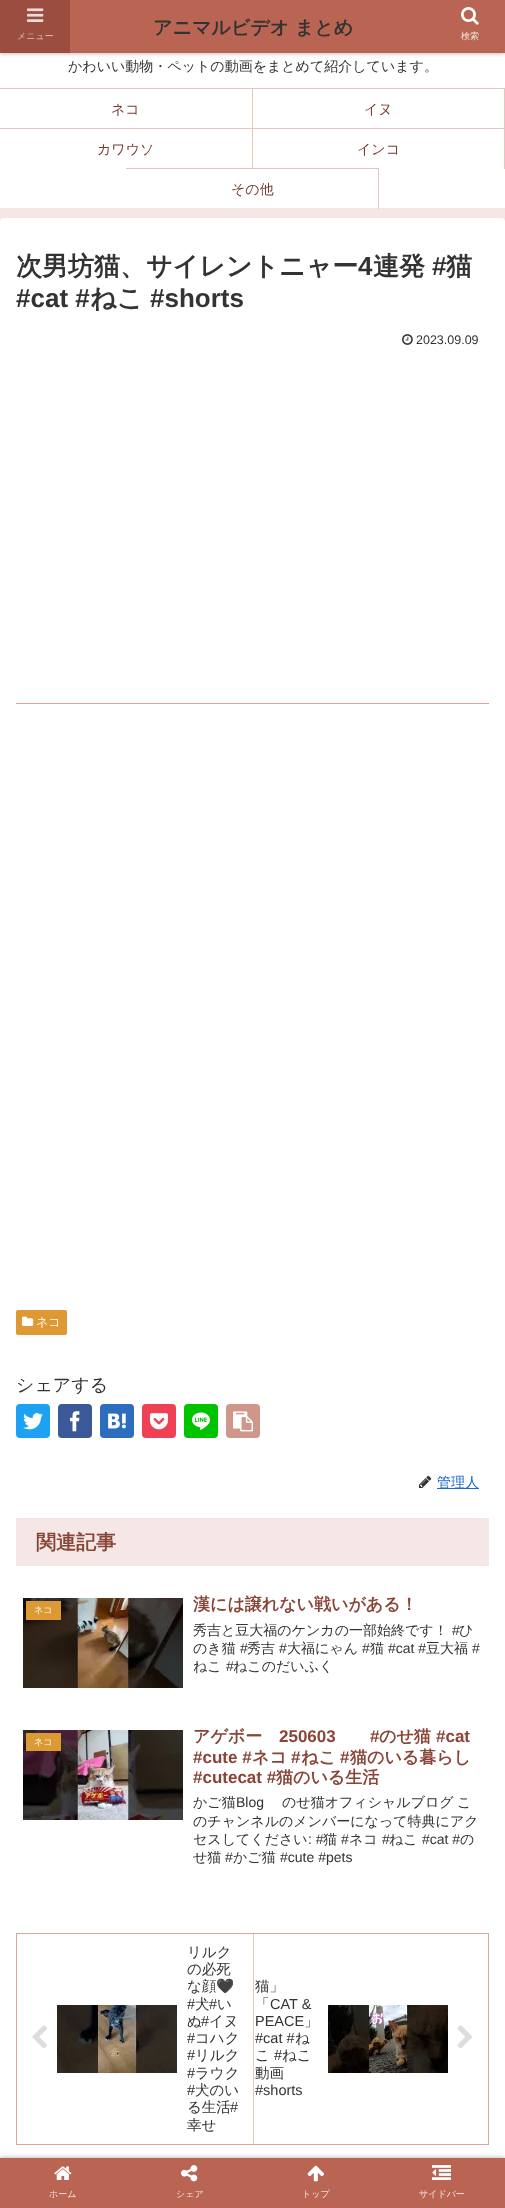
<!DOCTYPE html>
<meta charset="utf-8">
<style>body { margin: 0 } canvas { display: block }</style>
<canvas id="canvas" width="505" height="2208"></canvas>
<script type="module">
  const canvas = document.getElementById("canvas");
  const ctx = canvas.getContext("2d");
  ctx.miterLimit = 4;
  ctx.fontKerning = "normal";
  async function loadImage(src) {
    const img = new Image();
    img.src = src;
    await img.decode();
    return img;
  }

  ctx.fillStyle = "#f4e7e5";
  ctx.fillRect(0, 0, 505, 2208);
  ctx.fillStyle = "#ffffff";
  ctx.fillRect(0, 53, 505, 155);
  ctx.fillStyle = "#a9a9a9";
  ctx.filter = "blur(2.5px)";
  ctx.beginPath();
  ctx.rect(0, 0, 505, 53);
  ctx.fill();
  ctx.filter = "none";
  ctx.fillStyle = "#ba6553";
  ctx.fillRect(70, 0, 435, 53);
  ctx.fillStyle = "#9b4e3f";
  ctx.fillRect(0, 0, 70, 53);
  ctx.drawImage(await loadImage("img1.png"), 27, 8, 17, 14);
  ctx.font = "500 9px WenQuanYi Zen Hei";
  ctx.fillStyle = "#dbbfba";
  ctx.fillText("メニュー", 17, 39);
  ctx.font = "bold 19px WenQuanYi Zen Hei";
  ctx.fillStyle = "#333333";
  ctx.fillText("アニマルビデオ まとめ", 153, 34);
  ctx.drawImage(await loadImage("img2.png"), 461, 7, 18, 18);
  ctx.font = "500 9px WenQuanYi Zen Hei";
  ctx.fillStyle = "#f1e0dd";
  ctx.fillText("検索", 461, 39);
  ctx.font = "500 14px WenQuanYi Zen Hei";
  ctx.fillStyle = "#333333";
  ctx.fillText("かわいい動物・ペットの動画をまとめて紹介しています。", 68, 71);
  ctx.fillStyle = "#e6c7c0";
  ctx.fillRect(0, 88, 505, 1);
  ctx.fillRect(252, 88, 1, 41);
  ctx.fillStyle = "#773c30";
  ctx.fillText("ネコ", 111, 114);
  ctx.fillStyle = "#e6c7c0";
  ctx.fillRect(504, 88, 1, 41);
  ctx.fillStyle = "#773c30";
  ctx.fillText("イヌ", 364, 114);
  ctx.fillStyle = "#e6c7c0";
  ctx.fillRect(0, 128, 505, 1);
  ctx.fillRect(252, 128, 1, 41);
  ctx.fillStyle = "#773c30";
  ctx.fillText("カワウソ", 97, 154);
  ctx.fillStyle = "#e6c7c0";
  ctx.fillRect(504, 128, 1, 41);
  ctx.fillStyle = "#773c30";
  ctx.fillText("インコ", 357, 154);
  ctx.fillStyle = "#e6c7c0";
  ctx.fillRect(126, 168, 253, 1);
  ctx.fillRect(378, 168, 1, 41);
  ctx.fillStyle = "#773c30";
  ctx.fillText("その他", 231, 194);
  ctx.fillStyle = "#ffffff";
  ctx.beginPath();
  ctx.roundRect(0, 218, 505, 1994, 4);
  ctx.fill();
  ctx.font = "bold 26px WenQuanYi Zen Hei";
  ctx.fillStyle = "#333333";
  ctx.fillText("次男坊猫、サイレントニャー", 16, 275);
  ctx.font = "bold 26px Liberation Sans";
  ctx.fillText("4", 358, 275);
  ctx.font = "bold 26px WenQuanYi Zen Hei";
  ctx.fillText("連発", 373, 275);
  ctx.font = "bold 26px Liberation Sans";
  ctx.fillText("#", 432, 275);
  ctx.font = "bold 26px WenQuanYi Zen Hei";
  ctx.fillText("猫", 446, 275);
  ctx.font = "bold 26px Liberation Sans";
  ctx.fillText("#cat #", 16, 307);
  ctx.font = "bold 26px WenQuanYi Zen Hei";
  ctx.fillText("ねこ", 90, 307);
  ctx.font = "bold 26px Liberation Sans";
  ctx.fillText("#shorts", 150, 307);
  ctx.drawImage(await loadImage("img3.png"), 402, 334, 11, 11);
  ctx.font = "12.5px Liberation Sans";
  ctx.fillText("2023.09.09", 416, 344);
  ctx.fillStyle = "#d7a69c";
  ctx.fillRect(16, 703, 473, 1);
  ctx.fillStyle = "#dd9933";
  ctx.beginPath();
  ctx.roundRect(16, 1310, 51, 25, 2);
  ctx.fill();
  ctx.drawImage(await loadImage("img4.png"), 22, 1316, 12, 10);
  ctx.font = "500 12px WenQuanYi Zen Hei";
  ctx.fillStyle = "#ffffff";
  ctx.fillText("ネコ", 36, 1326);
  ctx.font = "500 18px WenQuanYi Zen Hei";
  ctx.fillStyle = "#333333";
  ctx.fillText("シェアする", 16, 1391);
  ctx.fillStyle = "#1da1f2";
  ctx.beginPath();
  ctx.roundRect(16, 1404, 34, 34, 4);
  ctx.fill();
  ctx.drawImage(await loadImage("img5.png"), 23, 1413, 20, 17);
  ctx.fillStyle = "#3b5998";
  ctx.beginPath();
  ctx.roundRect(58, 1404, 34, 34, 4);
  ctx.fill();
  ctx.drawImage(await loadImage("img6.png"), 70, 1411, 10, 21);
  ctx.fillStyle = "#2c6ebd";
  ctx.beginPath();
  ctx.roundRect(100, 1404, 34, 34, 4);
  ctx.fill();
  ctx.drawImage(await loadImage("img7.png"), 108, 1413, 18, 16);
  ctx.fillStyle = "#ef4056";
  ctx.beginPath();
  ctx.roundRect(142, 1404, 34, 34, 4);
  ctx.fill();
  ctx.drawImage(await loadImage("img8.png"), 149, 1413, 19, 17);
  ctx.fillStyle = "#00c300";
  ctx.beginPath();
  ctx.roundRect(184, 1404, 34, 34, 4);
  ctx.fill();
  ctx.drawImage(await loadImage("img9.png"), 192, 1412, 18, 18);
  ctx.fillStyle = "#d0968a";
  ctx.beginPath();
  ctx.roundRect(226, 1404, 34, 34, 4);
  ctx.fill();
  ctx.drawImage(await loadImage("img10.png"), 233, 1411, 20, 21);
  ctx.drawImage(await loadImage("img11.png"), 419, 1475, 13, 13);
  ctx.fillStyle = "#1967d2";
  ctx.fillRect(437, 1488, 42, 1);
  ctx.font = "500 14px WenQuanYi Zen Hei";
  ctx.fillText("管理人", 437, 1487);
  ctx.fillStyle = "#f4e7e5";
  ctx.fillRect(16, 1518, 473, 48);
  ctx.font = "bold 20px WenQuanYi Zen Hei";
  ctx.fillStyle = "#894537";
  ctx.fillText("関連記事", 36, 1549);
  ctx.drawImage(await loadImage("img12.png"), 23, 1598, 160, 90);
  ctx.fillStyle = "#dd9933";
  ctx.fillRect(26, 1601, 35, 19);
  ctx.font = "500 9px WenQuanYi Zen Hei";
  ctx.fillStyle = "#ffffff";
  ctx.fillText("ネコ", 34, 1613);
  ctx.font = "bold 17px WenQuanYi Zen Hei";
  ctx.fillStyle = "#894537";
  ctx.fillText("漢には譲れない戦いがある！", 193, 1610);
  ctx.font = "500 14px WenQuanYi Zen Hei";
  ctx.fillStyle = "#333333";
  ctx.fillText("秀吉と豆大福のケンカの一部始終です！", 193, 1635);
  ctx.font = "14px Liberation Sans";
  ctx.fillText("#", 452, 1635);
  ctx.font = "500 14px WenQuanYi Zen Hei";
  ctx.fillText("ひ", 459, 1635);
  ctx.fillText("のき猫", 193, 1653);
  ctx.font = "14px Liberation Sans";
  ctx.fillText("#", 240, 1653);
  ctx.font = "500 14px WenQuanYi Zen Hei";
  ctx.fillText("秀吉", 247, 1653);
  ctx.font = "14px Liberation Sans";
  ctx.fillText("#", 279, 1653);
  ctx.font = "500 14px WenQuanYi Zen Hei";
  ctx.fillText("大福にゃん", 287, 1653);
  ctx.font = "14px Liberation Sans";
  ctx.fillText("#", 362, 1653);
  ctx.font = "500 14px WenQuanYi Zen Hei";
  ctx.fillText("猫", 370, 1653);
  ctx.font = "14px Liberation Sans";
  ctx.fillText("#cat #", 388, 1653);
  ctx.font = "500 14px WenQuanYi Zen Hei";
  ctx.fillText("豆大福", 426, 1653);
  ctx.font = "14px Liberation Sans";
  ctx.fillText("#", 472, 1653);
  ctx.font = "500 14px WenQuanYi Zen Hei";
  ctx.fillText("ねこ", 193, 1671);
  ctx.font = "14px Liberation Sans";
  ctx.fillText("#", 226, 1671);
  ctx.font = "500 14px WenQuanYi Zen Hei";
  ctx.fillText("ねこのだいふく", 233, 1671);
  ctx.drawImage(await loadImage("img13.png"), 23, 1730, 160, 90);
  ctx.fillStyle = "#dd9933";
  ctx.fillRect(26, 1733, 35, 18);
  ctx.font = "500 9px WenQuanYi Zen Hei";
  ctx.fillStyle = "#ffffff";
  ctx.fillText("ネコ", 34, 1745);
  ctx.font = "bold 17px WenQuanYi Zen Hei";
  ctx.fillStyle = "#894537";
  ctx.fillText("アゲボー", 193, 1742);
  ctx.font = "bold 17px Liberation Sans";
  ctx.fillText("250603", 279, 1742);
  ctx.fillText("#", 370, 1742);
  ctx.font = "bold 17px WenQuanYi Zen Hei";
  ctx.fillText("のせ猫", 379, 1742);
  ctx.font = "bold 17px Liberation Sans";
  ctx.fillText("#cat", 436, 1742);
  ctx.fillText("#cute #", 193, 1763);
  ctx.font = "bold 17px WenQuanYi Zen Hei";
  ctx.fillText("ネコ", 252, 1763);
  ctx.font = "bold 17px Liberation Sans";
  ctx.fillText("#", 291, 1763);
  ctx.font = "bold 17px WenQuanYi Zen Hei";
  ctx.fillText("ねこ", 301, 1763);
  ctx.font = "bold 17px Liberation Sans";
  ctx.fillText("#", 340, 1763);
  ctx.font = "bold 17px WenQuanYi Zen Hei";
  ctx.fillText("猫のいる暮らし", 350, 1763);
  ctx.font = "bold 17px Liberation Sans";
  ctx.fillText("#cutecat #", 193, 1783);
  ctx.font = "bold 17px WenQuanYi Zen Hei";
  ctx.fillText("猫のいる生活", 276, 1783);
  ctx.font = "500 14px WenQuanYi Zen Hei";
  ctx.fillStyle = "#333333";
  ctx.fillText("かご猫", 193, 1807);
  ctx.font = "14px Liberation Sans";
  ctx.fillText("Blog", 236, 1807);
  ctx.font = "500 14px WenQuanYi Zen Hei";
  ctx.fillText("のせ猫オフィシャルブログ", 282, 1807);
  ctx.fillText("こ", 457, 1807);
  ctx.fillText("のチャンネルのメンバーになって特典にアク", 193, 1826);
  ctx.fillText("セスしてください", 193, 1844);
  ctx.font = "14px Liberation Sans";
  ctx.fillText(": #", 308, 1844);
  ctx.font = "500 14px WenQuanYi Zen Hei";
  ctx.fillText("猫", 323, 1844);
  ctx.font = "14px Liberation Sans";
  ctx.fillText("#", 341, 1844);
  ctx.font = "500 14px WenQuanYi Zen Hei";
  ctx.fillText("ネコ", 349, 1844);
  ctx.font = "14px Liberation Sans";
  ctx.fillText("#", 382, 1844);
  ctx.font = "500 14px WenQuanYi Zen Hei";
  ctx.fillText("ねこ", 389, 1844);
  ctx.font = "14px Liberation Sans";
  ctx.fillText("#cat #", 422, 1844);
  ctx.font = "500 14px WenQuanYi Zen Hei";
  ctx.fillText("の", 460, 1844);
  ctx.fillText("せ猫", 193, 1862);
  ctx.font = "14px Liberation Sans";
  ctx.fillText("#", 225, 1862);
  ctx.font = "500 14px WenQuanYi Zen Hei";
  ctx.fillText("かご猫", 233, 1862);
  ctx.font = "14px Liberation Sans";
  ctx.fillText("#cute #pets", 280, 1862);
  ctx.strokeStyle = "#d7a69c";
  ctx.strokeRect(16.5, 1933.5, 472, 211);
  ctx.drawImage(await loadImage("img14.png"), 32, 2025, 15, 24);
  ctx.drawImage(await loadImage("img15.png"), 57, 2005, 120, 68);
  ctx.font = "500 14.5px WenQuanYi Zen Hei";
  ctx.fillText("リルク", 187, 1957);
  ctx.fillText("の必死", 187, 1974);
  ctx.fillText("な顔", 187, 1991);
  ctx.font = "14.5px Noto Color Emoji";
  ctx.fillText("🖤", 216, 1991);
  ctx.font = "14.5px Liberation Sans";
  ctx.fillText("#", 187, 2009);
  ctx.font = "500 14.5px WenQuanYi Zen Hei";
  ctx.fillText("犬", 195, 2009);
  ctx.font = "14.5px Liberation Sans";
  ctx.fillText("#", 209, 2009);
  ctx.font = "500 14.5px WenQuanYi Zen Hei";
  ctx.fillText("い", 217, 2009);
  ctx.fillText("ぬ", 187, 2026);
  ctx.font = "14.5px Liberation Sans";
  ctx.fillText("#", 201, 2026);
  ctx.font = "500 14.5px WenQuanYi Zen Hei";
  ctx.fillText("イヌ", 209, 2026);
  ctx.font = "14.5px Liberation Sans";
  ctx.fillText("#", 187, 2043);
  ctx.font = "500 14.5px WenQuanYi Zen Hei";
  ctx.fillText("コハク", 195, 2043);
  ctx.font = "14.5px Liberation Sans";
  ctx.fillText("#", 187, 2060);
  ctx.font = "500 14.5px WenQuanYi Zen Hei";
  ctx.fillText("リルク", 195, 2060);
  ctx.font = "14.5px Liberation Sans";
  ctx.fillText("#", 187, 2078);
  ctx.font = "500 14.5px WenQuanYi Zen Hei";
  ctx.fillText("ラウク", 195, 2078);
  ctx.font = "14.5px Liberation Sans";
  ctx.fillText("#", 187, 2095);
  ctx.font = "500 14.5px WenQuanYi Zen Hei";
  ctx.fillText("犬のい", 195, 2095);
  ctx.fillText("る生活", 187, 2112);
  ctx.font = "14.5px Liberation Sans";
  ctx.fillText("#", 230, 2112);
  ctx.font = "500 14.5px WenQuanYi Zen Hei";
  ctx.fillText("幸せ", 187, 2130);
  ctx.fillStyle = "#e6c7c0";
  ctx.fillRect(253, 1934, 1, 210);
  ctx.fillStyle = "#333333";
  ctx.fillText("猫」", 255, 1991);
  ctx.fillText("「", 255, 2009);
  ctx.font = "14.5px Liberation Sans";
  ctx.fillText("CAT &", 270, 2009);
  ctx.fillText("PEACE", 255, 2026);
  ctx.font = "500 14.5px WenQuanYi Zen Hei";
  ctx.fillText("」", 304, 2026);
  ctx.font = "14.5px Liberation Sans";
  ctx.fillText("#cat #", 255, 2043);
  ctx.font = "500 14.5px WenQuanYi Zen Hei";
  ctx.fillText("ね", 295, 2043);
  ctx.fillText("こ", 255, 2060);
  ctx.font = "14.5px Liberation Sans";
  ctx.fillText("#", 274, 2060);
  ctx.font = "500 14.5px WenQuanYi Zen Hei";
  ctx.fillText("ねこ", 282, 2060);
  ctx.fillText("動画", 255, 2078);
  ctx.font = "14.5px Liberation Sans";
  ctx.fillText("#shorts", 255, 2095);
  ctx.drawImage(await loadImage("img16.png"), 328, 2005, 120, 68);
  ctx.drawImage(await loadImage("img17.png"), 457, 2025, 16, 24);
  ctx.fillStyle = "#a9a9a9";
  ctx.filter = "blur(2.5px)";
  ctx.beginPath();
  ctx.rect(0, 2158, 505, 50);
  ctx.fill();
  ctx.filter = "none";
  ctx.fillStyle = "#ba6553";
  ctx.fillRect(0, 2158, 505, 50);
  ctx.drawImage(await loadImage("img18.png"), 54, 2166, 18, 14);
  ctx.font = "500 9px WenQuanYi Zen Hei";
  ctx.fillStyle = "#f1e0dd";
  ctx.fillText("ホーム", 49, 2197);
  ctx.drawImage(await loadImage("img19.png"), 181, 2165, 17, 17);
  ctx.fillText("シェア", 176, 2197);
  ctx.drawImage(await loadImage("img20.png"), 307, 2165, 17, 17);
  ctx.fillText("トップ", 302, 2197);
  ctx.drawImage(await loadImage("img21.png"), 432, 2165, 19, 15);
  ctx.fillText("サイドバー", 419, 2197);
</script>
